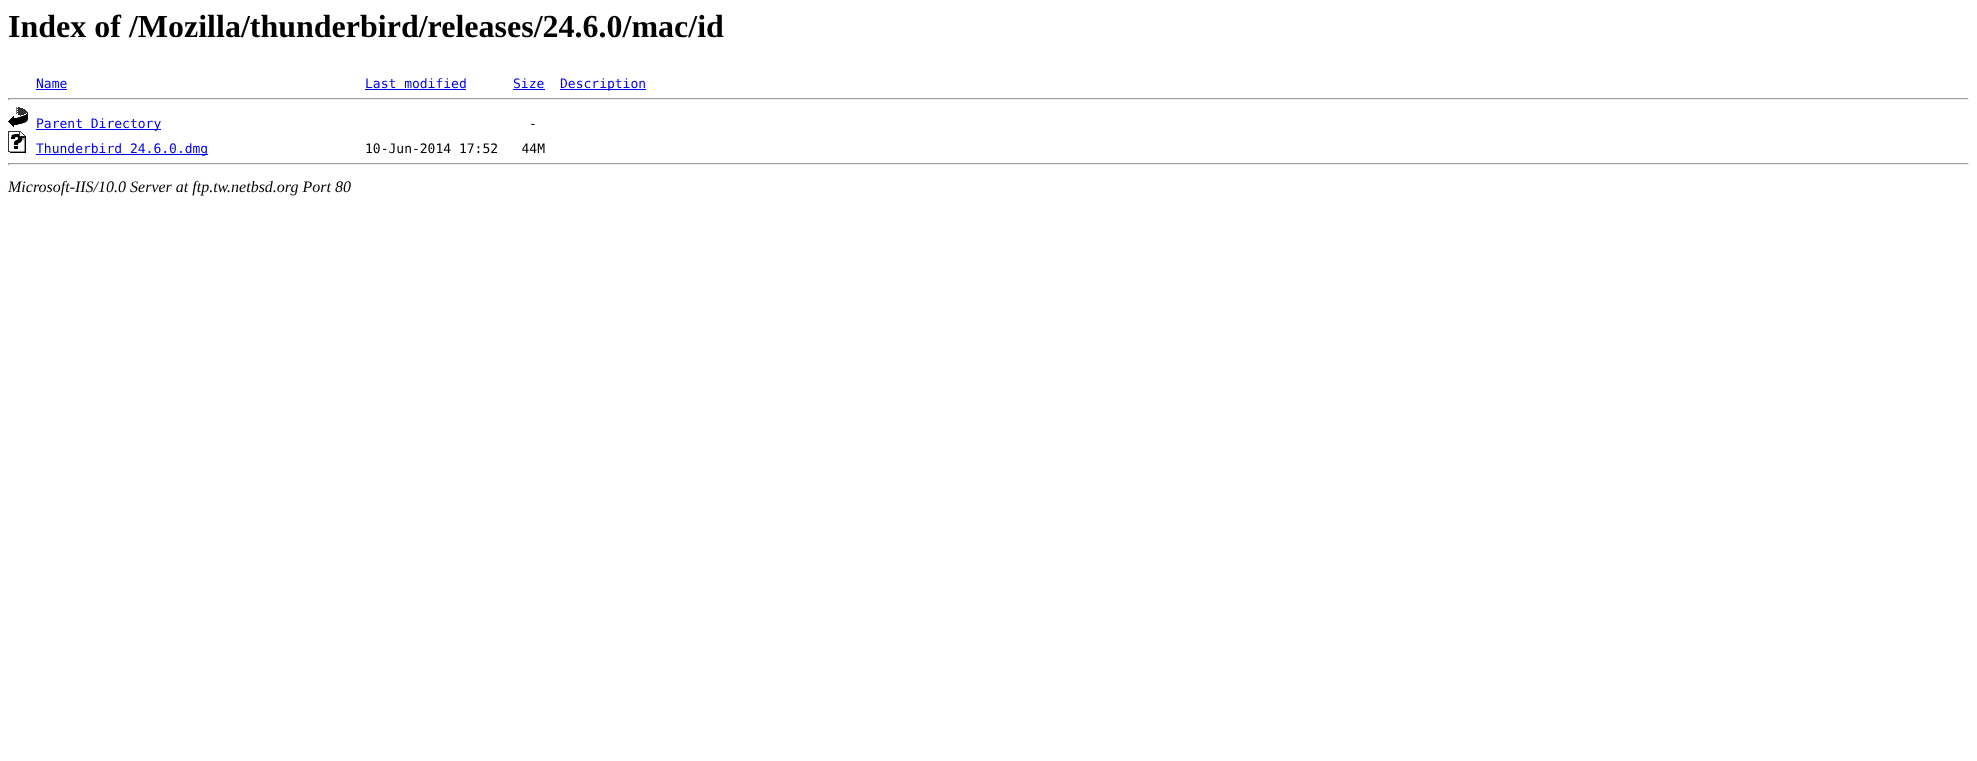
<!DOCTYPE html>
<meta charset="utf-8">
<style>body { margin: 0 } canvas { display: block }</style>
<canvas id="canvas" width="1977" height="761"></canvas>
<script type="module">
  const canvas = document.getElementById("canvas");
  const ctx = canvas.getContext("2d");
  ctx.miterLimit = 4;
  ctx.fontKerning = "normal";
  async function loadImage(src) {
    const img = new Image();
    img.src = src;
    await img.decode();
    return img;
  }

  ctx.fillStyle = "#ffffff";
  ctx.fillRect(0, 0, 1977, 761);
  ctx.font = "bold 32px Liberation Serif";
  ctx.fillStyle = "#000000";
  ctx.fillText("Index of /Mozilla/thunderbird/releases/24.6.0/mac/id", 8, 37);
  ctx.font = "13px DejaVu Sans Mono";
  ctx.fillStyle = "#0000ee";
  ctx.fillText("Name", 36, 88);
  ctx.fillRect(36, 89, 31, 1);
  ctx.fillText("Last modified", 365, 88);
  ctx.fillRect(365, 89, 101, 1);
  ctx.fillText("Size", 513, 88);
  ctx.fillRect(513, 89, 32, 1);
  ctx.fillRect(560, 89, 86, 1);
  ctx.fillText("Description", 560, 88);
  ctx.fillStyle = "#9f9f9f";
  ctx.fillRect(8, 98, 1961, 1);
  ctx.fillStyle = "#eeeeee";
  ctx.fillRect(1968, 98, 1, 2);
  ctx.fillRect(8, 99, 1961, 1);
  ctx.fillStyle = "#9f9f9f";
  ctx.fillRect(8, 98, 1, 2);
  ctx.drawImage(await loadImage("img1.png"), 8, 107, 20, 20);
  ctx.fillStyle = "#0000ee";
  ctx.fillRect(36, 129, 125, 1);
  ctx.fillText("Parent Directory", 36, 128);
  ctx.fillStyle = "#000000";
  ctx.fillText("-", 529, 128);
  ctx.drawImage(await loadImage("img2.png"), 8, 131, 18, 22);
  ctx.fillStyle = "#0000ee";
  ctx.fillRect(36, 154, 172, 1);
  ctx.fillText("Thunderbird 24.6.0.dmg", 36, 153);
  ctx.fillStyle = "#000000";
  ctx.fillText("10-Jun-2014 17:52   44M", 365, 153);
  ctx.fillStyle = "#9f9f9f";
  ctx.fillRect(8, 163, 1961, 1);
  ctx.fillStyle = "#eeeeee";
  ctx.fillRect(1968, 163, 1, 2);
  ctx.fillRect(8, 164, 1961, 1);
  ctx.fillStyle = "#9f9f9f";
  ctx.fillRect(8, 163, 1, 2);
  ctx.font = "italic 16px Liberation Serif";
  ctx.fillStyle = "#000000";
  ctx.fillText("Microsoft-IIS/10.0 Server at ftp.tw.netbsd.org Port 80", 8, 192);
</script>
